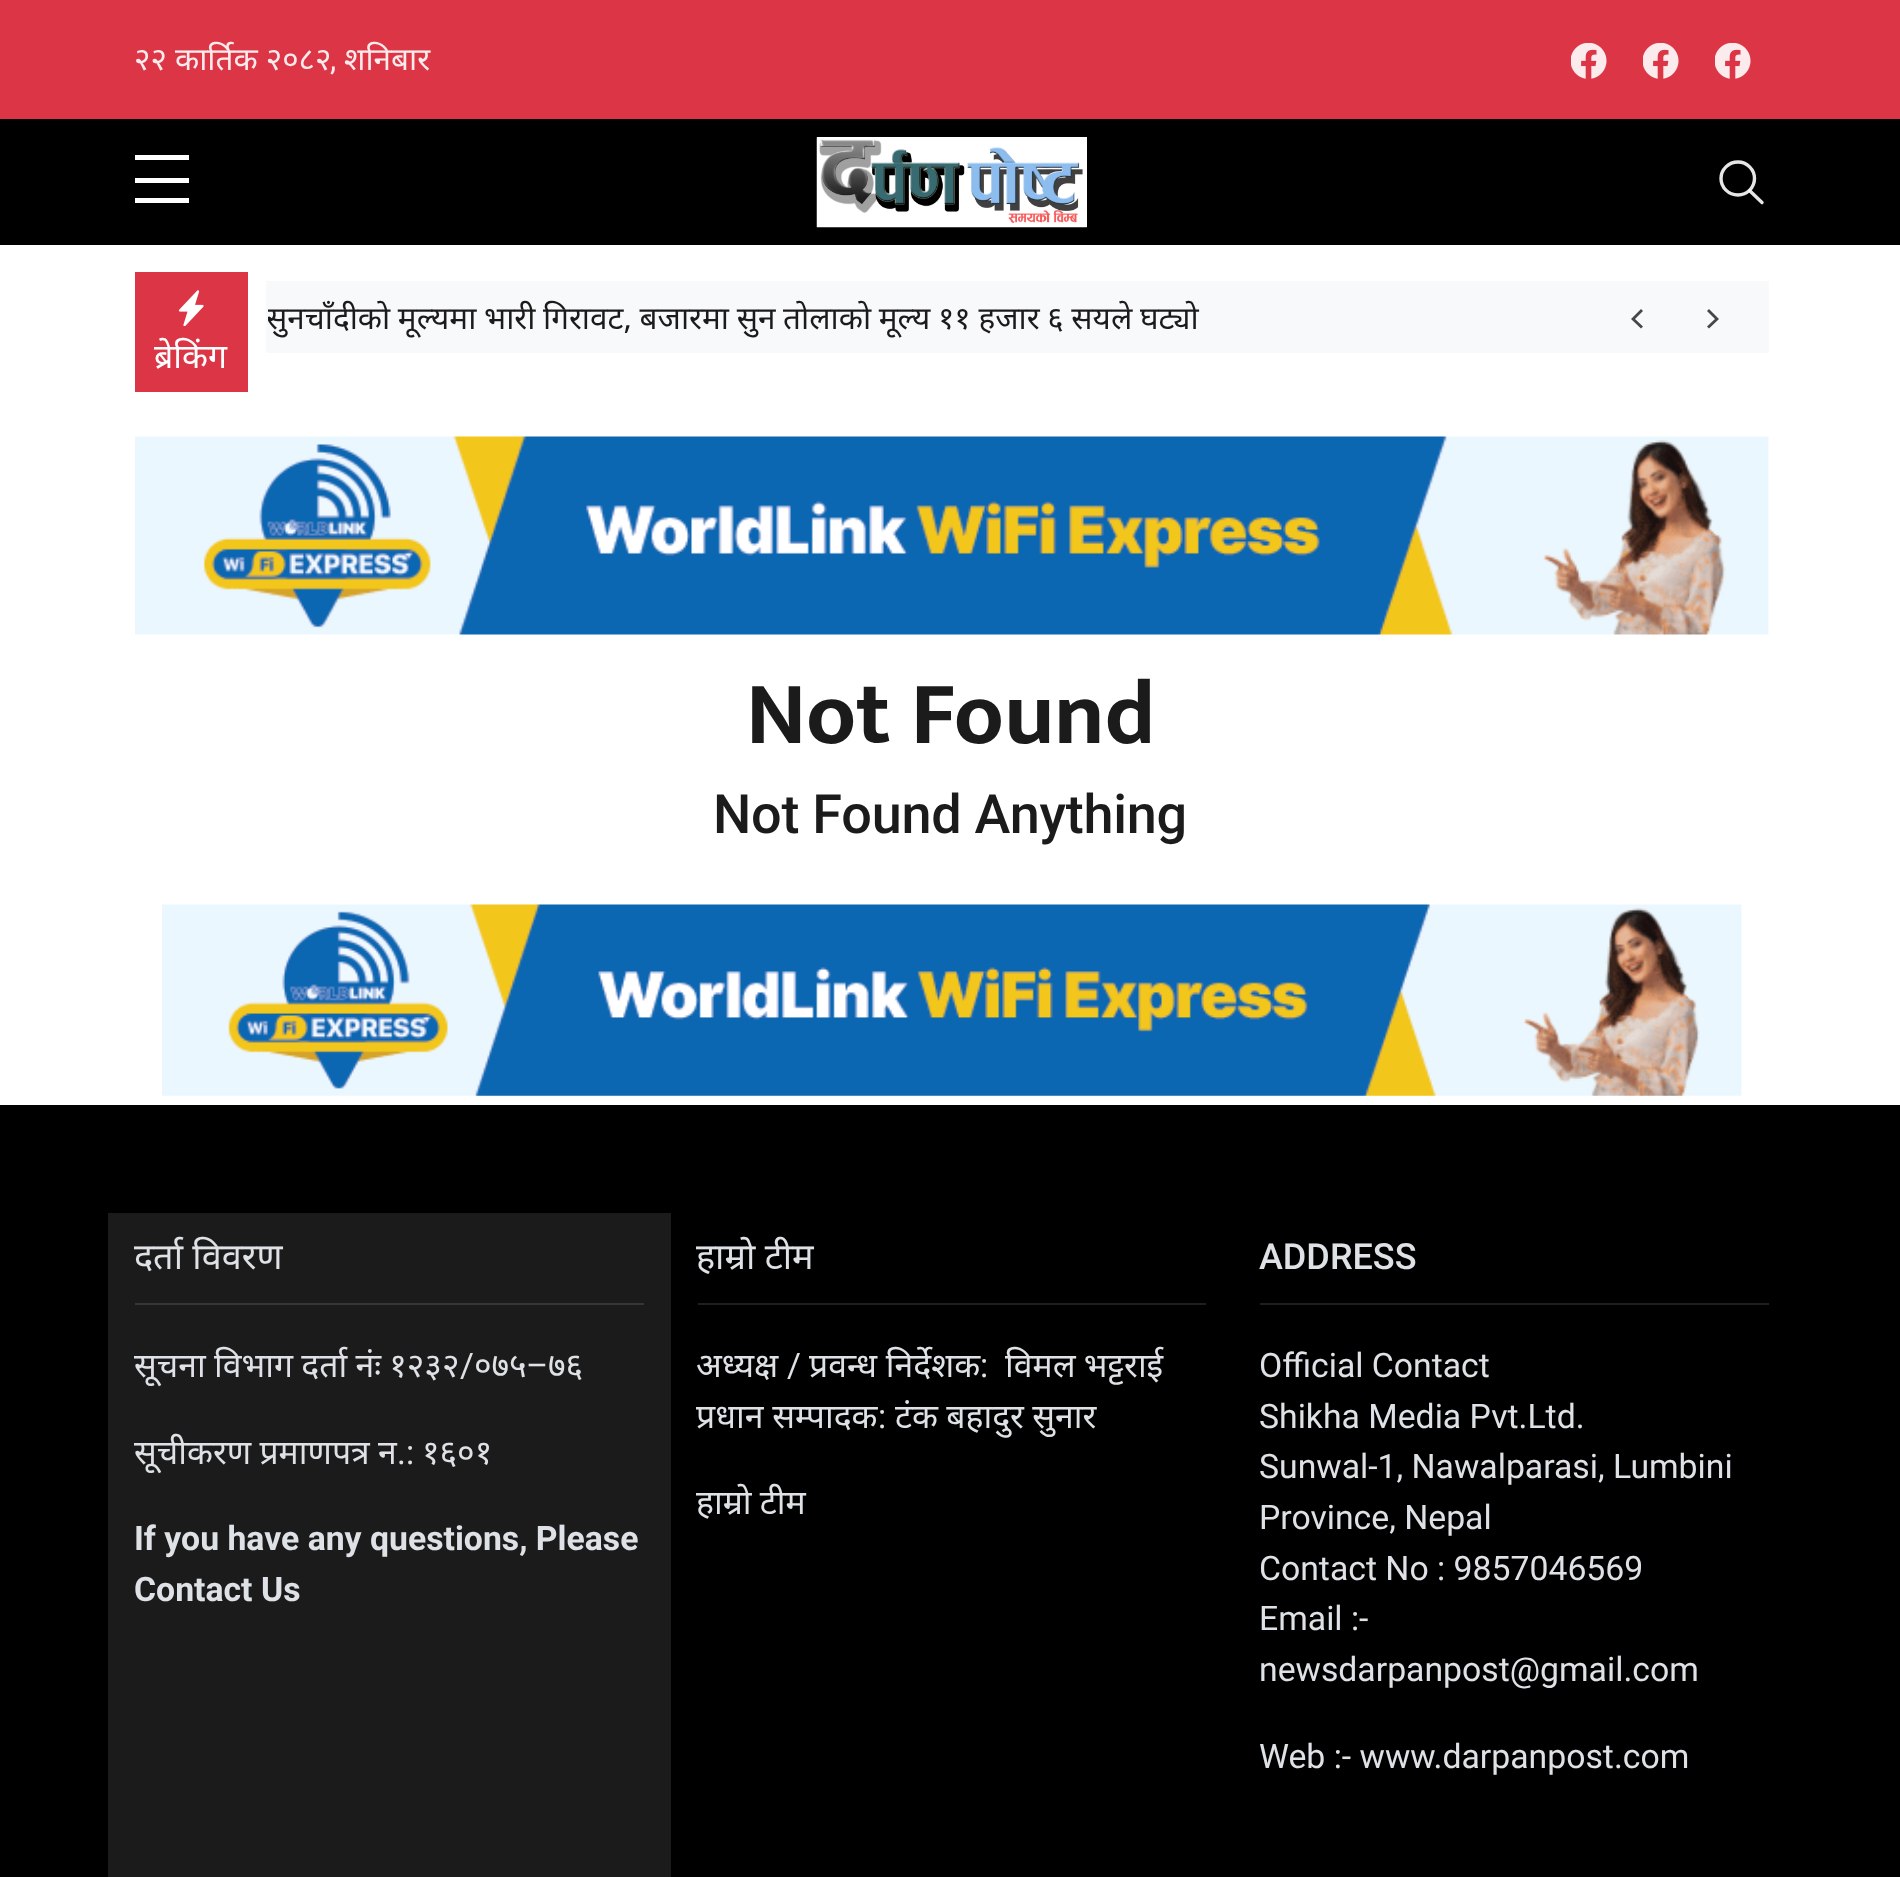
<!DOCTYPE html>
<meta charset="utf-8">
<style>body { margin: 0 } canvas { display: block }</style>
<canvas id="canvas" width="1900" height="1877"></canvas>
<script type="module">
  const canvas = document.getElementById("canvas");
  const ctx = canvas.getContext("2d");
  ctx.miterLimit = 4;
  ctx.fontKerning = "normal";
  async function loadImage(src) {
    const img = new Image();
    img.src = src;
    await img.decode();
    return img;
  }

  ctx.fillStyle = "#ffffff";
  ctx.fillRect(0, 0, 1900, 1877);
  ctx.fillStyle = "#dc3545";
  ctx.fillRect(0, 0, 1900, 119);
  ctx.font = "31.5px Noto Sans";
  ctx.fillStyle = "#fcebec";
  ctx.fillText("२२ कार्तिक २०८२", 134, 70);
  ctx.font = "31.5px Roboto";
  ctx.fillText(",", 330, 70);
  ctx.font = "31.5px Noto Sans";
  ctx.fillText("शनिबार", 344, 70);
  ctx.drawImage(await loadImage("img1.png"), 1571, 43, 36, 36);
  ctx.drawImage(await loadImage("img1.png"), 1643, 43, 36, 36);
  ctx.drawImage(await loadImage("img1.png"), 1715, 43, 36, 36);
  ctx.fillStyle = "#000000";
  ctx.fillRect(0, 119, 1900, 126);
  ctx.fillStyle = "#ffffff";
  ctx.fillRect(135, 155, 54, 5);
  ctx.fillRect(135, 178, 54, 5);
  ctx.fillRect(135, 198, 54, 5);
  ctx.fillRect(817, 137, 270, 90);
  ctx.drawImage(await loadImage("img2.png"), 816, 137, 271, 91);
  ctx.beginPath();
  ctx.moveTo(1738, 162);
  ctx.bezierCurveTo(1728.5, 162, 1721, 169.5, 1721, 178.5);
  ctx.bezierCurveTo(1721, 187.5, 1728.5, 195, 1738, 195);
  ctx.bezierCurveTo(1747, 195, 1754.5, 187.5, 1754.5, 178.5);
  ctx.bezierCurveTo(1754.5, 169.5, 1747, 162, 1738, 162);
  ctx.closePath();
  ctx.strokeStyle = "#e6e6e6";
  ctx.lineWidth = 3.4;
  ctx.stroke();
  ctx.beginPath();
  ctx.moveTo(1750, 191);
  ctx.lineTo(1762, 202.5);
  ctx.strokeStyle = "rgba(255, 255, 255, 0.9)";
  ctx.lineCap = "round";
  ctx.stroke();
  ctx.fillStyle = "#f8f9fa";
  ctx.fillRect(266, 281, 1503, 72);
  ctx.save();
  ctx.beginPath();
  ctx.rect(268, 281, 1501, 72);
  ctx.clip();
  ctx.wordSpacing = "-0.5px";
  ctx.fillStyle = "#1b1b1b";
  ctx.fillText("सुनचाँदीको मूल्यमा भारी गिरावट, बजारमा सुन तोलाको मूल्य ११ हजार ६ सयले घट्यो", 266, 329);
  ctx.restore();
  ctx.fillStyle = "#474748";
  ctx.beginPath();
  ctx.moveTo(1631, 319);
  ctx.lineTo(1641, 328.5);
  ctx.lineTo(1643, 326.5);
  ctx.lineTo(1635, 319);
  ctx.lineTo(1643, 311);
  ctx.lineTo(1641, 309);
  ctx.closePath();
  ctx.fill();
  ctx.beginPath();
  ctx.moveTo(1719, 319);
  ctx.lineTo(1709, 309);
  ctx.lineTo(1707, 311);
  ctx.lineTo(1715, 319);
  ctx.lineTo(1707, 326.5);
  ctx.lineTo(1709, 328.5);
  ctx.closePath();
  ctx.fill();
  ctx.fillStyle = "#dc3545";
  ctx.fillRect(135, 272, 113, 120);
  ctx.drawImage(await loadImage("img3.png"), 178, 290, 26, 36);
  ctx.font = "33.75px Noto Sans";
  ctx.fillStyle = "#ffffff";
  ctx.fillText("ब्रेकिंग", 154, 368);
  ctx.drawImage(await loadImage("img4.png"), 135, 436, 1634, 199);
  ctx.letterSpacing = "-0.25px";
  ctx.font = "bold 90px Mukta";
  ctx.fillStyle = "#1b1b1b";
  ctx.fillText("Not Found", 746, 743);
  ctx.font = "500 54px Roboto";
  ctx.fillText("Not Found Anything", 713, 833);
  ctx.drawImage(await loadImage("img5.png"), 162, 904, 1580, 192);
  ctx.fillStyle = "#000000";
  ctx.fillRect(0, 1105, 1900, 772);
  ctx.fillStyle = "#1b1b1b";
  ctx.fillRect(108, 1213, 563, 664);
  ctx.fillStyle = "#363636";
  ctx.fillRect(135, 1303, 509, 2);
  ctx.letterSpacing = "0px";
  ctx.font = "36px Noto Sans";
  ctx.fillStyle = "#dee2e6";
  ctx.fillText("दर्ता विवरण", 134, 1269);
  ctx.wordSpacing = "-0.5px";
  ctx.font = "33.75px Noto Sans";
  ctx.fillText("सूचना विभाग दर्ता नंः १२३२", 134, 1377);
  ctx.wordSpacing = "0px";
  ctx.font = "33.75px Roboto";
  ctx.fillText("/", 460, 1377);
  ctx.font = "33.75px Noto Sans";
  ctx.fillText("०७५", 474, 1377);
  ctx.font = "33.75px Roboto";
  ctx.fillText("–", 526, 1377);
  ctx.font = "33.75px Noto Sans";
  ctx.fillText("७६", 548, 1377);
  ctx.wordSpacing = "-0.5px";
  ctx.fillText("सूचीकरण प्रमाणपत्र न", 134, 1464);
  ctx.wordSpacing = "0px";
  ctx.font = "33.75px Roboto";
  ctx.fillText(".:", 397, 1464);
  ctx.font = "33.75px Noto Sans";
  ctx.fillText("१६०१", 422, 1464);
  ctx.font = "bold 33.75px Roboto";
  ctx.fillText("If you have any questions, Please", 134, 1550);
  ctx.fillText("Contact Us", 134, 1601);
  ctx.fillStyle = "#1f1f1f";
  ctx.fillRect(698, 1303, 508, 2);
  ctx.font = "36px Noto Sans";
  ctx.fillStyle = "#dee2e6";
  ctx.fillText("हाम्रो टीम", 696, 1269);
  ctx.font = "33.75px Noto Sans";
  ctx.fillText("अध्यक्ष", 696, 1377);
  ctx.font = "33.75px Roboto";
  ctx.fillText("/", 787, 1377);
  ctx.font = "33.75px Noto Sans";
  ctx.fillText("प्रवन्ध निर्देशक", 809, 1377);
  ctx.font = "33.75px Roboto";
  ctx.fillText(":", 980, 1377);
  ctx.wordSpacing = "-0.5px";
  ctx.font = "33.75px Noto Sans";
  ctx.fillText("विमल भट्टराई", 1005, 1377);
  ctx.wordSpacing = "0px";
  ctx.fillText("प्रधान सम्पादक", 696, 1428);
  ctx.font = "33.75px Roboto";
  ctx.fillText(":", 878, 1428);
  ctx.wordSpacing = "-0.5px";
  ctx.font = "33.75px Noto Sans";
  ctx.fillText("टंक बहादुर सुनार", 895, 1428);
  ctx.fillText("हाम्रो टीम", 696, 1514);
  ctx.fillStyle = "#1f1f1f";
  ctx.fillRect(1260, 1303, 509, 2);
  ctx.wordSpacing = "0px";
  ctx.font = "500 36px Roboto";
  ctx.fillStyle = "#dee2e6";
  ctx.fillText("ADDRESS", 1259, 1269);
  ctx.font = "33.75px Roboto";
  ctx.fillText("Official Contact", 1259, 1377);
  ctx.fillText("Shikha Media Pvt.Ltd.", 1259, 1428);
  ctx.fillText("Sunwal-1, Nawalparasi, Lumbini", 1259, 1478);
  ctx.fillText("Province, Nepal", 1259, 1529);
  ctx.fillText("Contact No : 9857046569", 1259, 1580);
  ctx.fillText("Email :-", 1259, 1630);
  ctx.fillText("newsdarpanpost@gmail.com", 1259, 1681);
  ctx.fillText("Web :- www.darpanpost.com", 1259, 1768);
</script>
